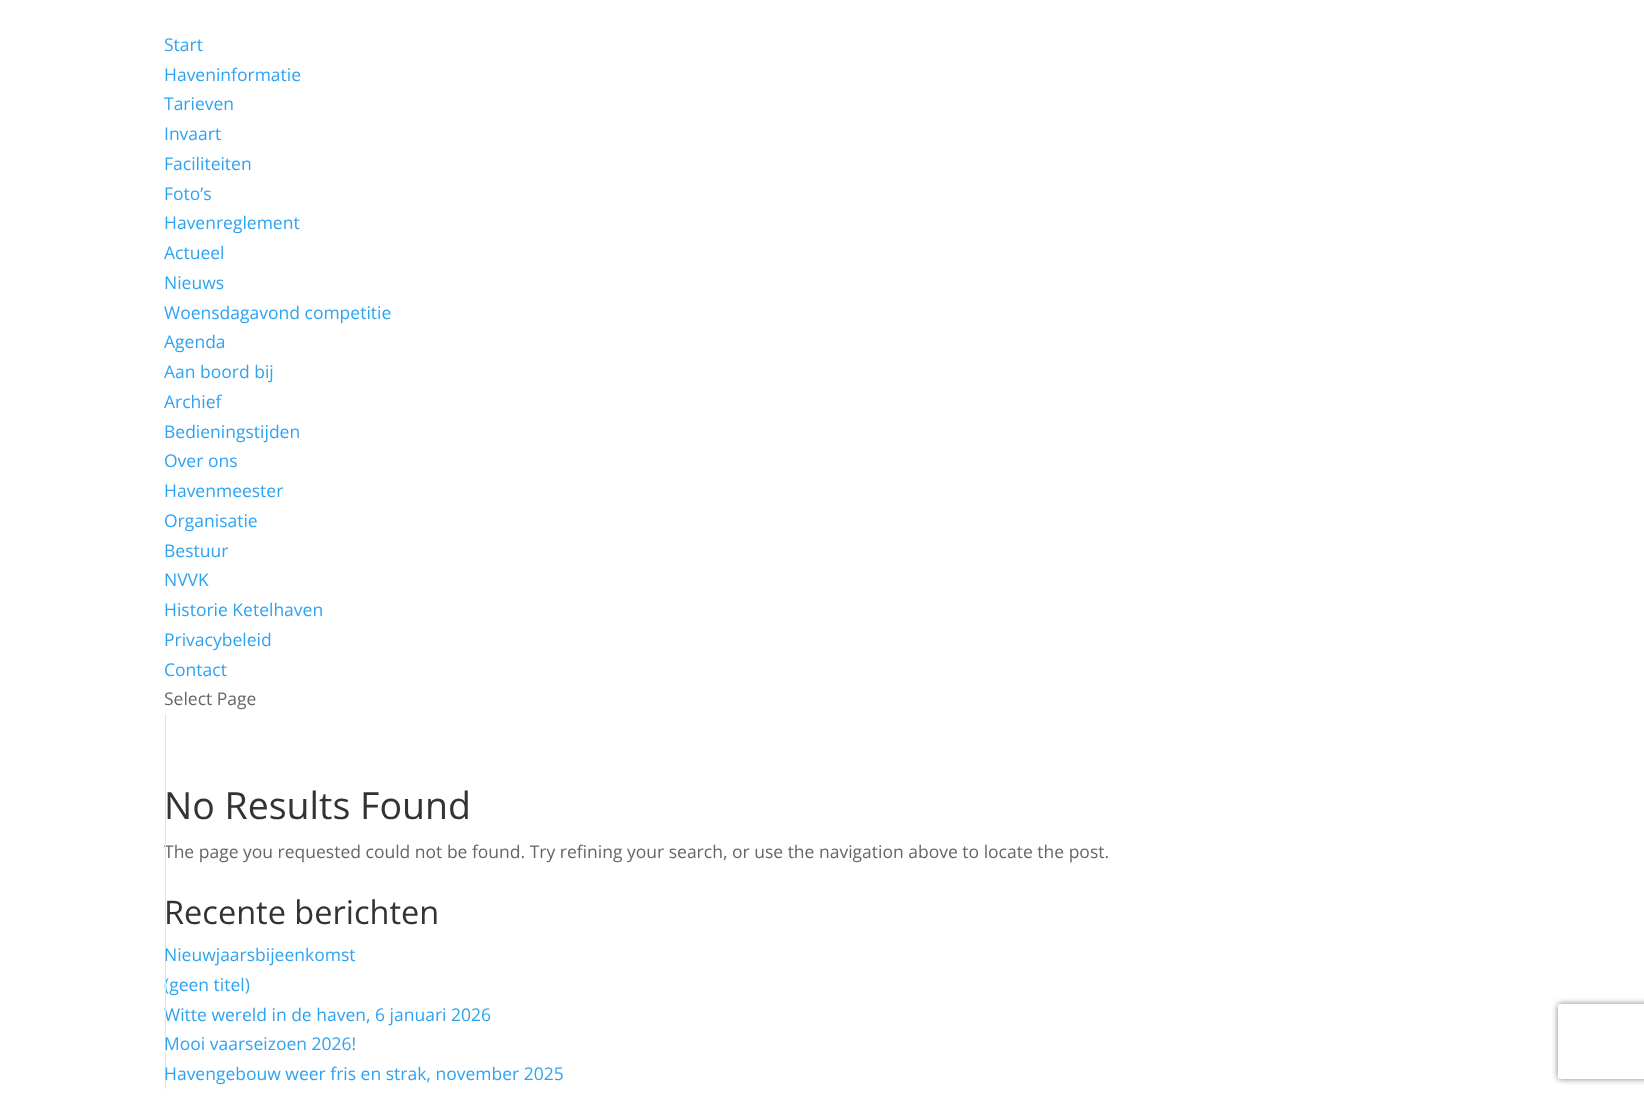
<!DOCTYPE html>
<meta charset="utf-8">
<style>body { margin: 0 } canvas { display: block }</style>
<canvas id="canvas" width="1644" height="1096"></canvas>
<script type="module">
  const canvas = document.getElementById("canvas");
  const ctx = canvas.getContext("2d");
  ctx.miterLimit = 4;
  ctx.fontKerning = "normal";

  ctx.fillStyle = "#ffffff";
  ctx.fillRect(0, 0, 1644, 1096);
  ctx.font = "17.5px Open Sans";
  ctx.fillStyle = "#2ea3f2";
  ctx.fillText("Start", 164, 51);
  ctx.fillText("Haveninformatie", 164, 81);
  ctx.fillText("Tarieven", 164, 110);
  ctx.fillText("Invaart", 164, 140);
  ctx.fillText("Faciliteiten", 164, 170);
  ctx.fillText("Foto’s", 164, 200);
  ctx.fillText("Havenreglement", 164, 229);
  ctx.fillText("Actueel", 164, 259);
  ctx.fillText("Nieuws", 164, 289);
  ctx.fillText("Woensdagavond competitie", 164, 319);
  ctx.fillText("Agenda", 164, 348);
  ctx.fillText("Aan boord bij", 164, 378);
  ctx.fillText("Archief", 164, 408);
  ctx.fillText("Bedieningstijden", 164, 438);
  ctx.fillText("Over ons", 164, 467);
  ctx.fillText("Havenmeester", 164, 497);
  ctx.fillText("Organisatie", 164, 527);
  ctx.fillText("Bestuur", 164, 557);
  ctx.fillText("NVVK", 164, 586);
  ctx.fillText("Historie Ketelhaven", 164, 616);
  ctx.fillText("Privacybeleid", 164, 646);
  ctx.fillText("Contact", 164, 676);
  ctx.fillStyle = "#666666";
  ctx.fillText("Select Page", 164, 705);
  ctx.fillText("The page you requested could not be found. Try refining your search, or use the navigation above to locate the post.", 164, 858);
  ctx.fillStyle = "#2ea3f2";
  ctx.fillText("(geen titel)", 164, 991);
  ctx.fillText("Witte wereld in de haven, 6 januari 2026", 164, 1021);
  ctx.fillStyle = "#e2e2e2";
  ctx.fillRect(165, 714, 1, 375);
  ctx.font = "37.5px Open Sans";
  ctx.fillStyle = "#333333";
  ctx.fillText("No Results Found", 164, 819);
  ctx.font = "32.5px Open Sans";
  ctx.fillText("Recente berichten", 164, 924);
  ctx.font = "17.5px Open Sans";
  ctx.fillStyle = "#2ea3f2";
  ctx.fillText("Nieuwjaarsbijeenkomst", 164, 961);
  ctx.fillText("Mooi vaarseizoen 2026!", 164, 1050);
  ctx.fillText("Havengebouw weer fris en strak, november 2025", 164, 1080);
  ctx.save();
  ctx.beginPath();
  ctx.moveTo(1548, 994);
  ctx.lineTo(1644, 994);
  ctx.lineTo(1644, 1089);
  ctx.lineTo(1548, 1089);
  ctx.closePath();
  ctx.moveTo(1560.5, 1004);
  ctx.lineTo(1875.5, 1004);
  ctx.bezierCurveTo(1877, 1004, 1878, 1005, 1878, 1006.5);
  ctx.lineTo(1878, 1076.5);
  ctx.bezierCurveTo(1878, 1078, 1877, 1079, 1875.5, 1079);
  ctx.lineTo(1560.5, 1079);
  ctx.bezierCurveTo(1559, 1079, 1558, 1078, 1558, 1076.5);
  ctx.lineTo(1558, 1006.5);
  ctx.bezierCurveTo(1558, 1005, 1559, 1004, 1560.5, 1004);
  ctx.closePath();
  ctx.clip("evenodd");
  ctx.fillStyle = "#808080";
  ctx.filter = "blur(3px)";
  ctx.beginPath();
  ctx.roundRect(1558, 1004, 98, 75, 2.5);
  ctx.fill();
  ctx.filter = "none";
  ctx.restore();
</script>
